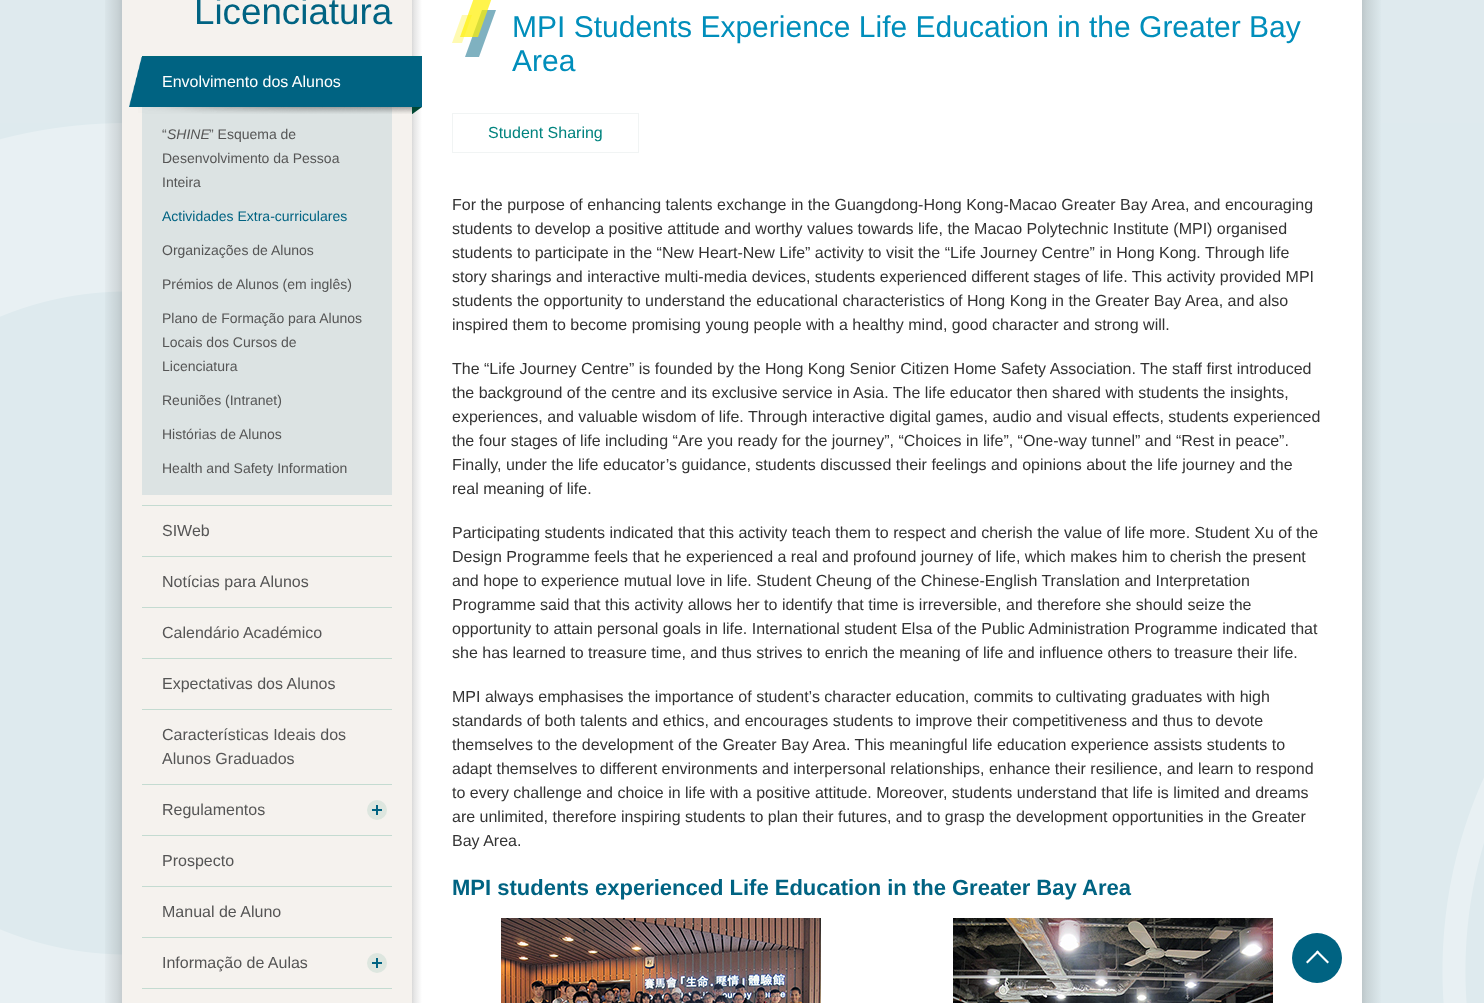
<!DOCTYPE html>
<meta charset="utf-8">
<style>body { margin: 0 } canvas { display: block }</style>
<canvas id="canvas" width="1484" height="1003"></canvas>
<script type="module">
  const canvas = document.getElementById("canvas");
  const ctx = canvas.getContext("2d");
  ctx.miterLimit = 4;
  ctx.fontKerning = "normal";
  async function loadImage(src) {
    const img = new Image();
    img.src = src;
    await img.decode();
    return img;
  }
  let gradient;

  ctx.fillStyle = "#dfeaee";
  ctx.fillRect(0, 0, 1484, 1003);
  ctx.drawImage(await loadImage("img1.png"), 0, 123, 1484, 880);
  gradient = ctx.createLinearGradient(122, 852, 102, 852);
  gradient.addColorStop(0, "rgba(0, 0, 0, 0.15)");
  gradient.addColorStop(0.23, "rgba(0, 0, 0, 0.1)");
  gradient.addColorStop(1, "rgba(0, 0, 0, 0)");
  ctx.fillStyle = gradient;
  ctx.fillRect(105, 0, 17, 1003);
  ctx.fillStyle = "#f5f2ee";
  ctx.fillRect(122, 0, 290, 1003);
  ctx.font = "36.75px Liberation Sans";
  ctx.fillStyle = "#006382";
  ctx.fillText("Licenciatura", 194, 24);
  gradient = ctx.createLinearGradient(412, 907, 422, 907);
  gradient.addColorStop(0, "#d9d9d9");
  gradient.addColorStop(0.23, "#e6e6e6");
  gradient.addColorStop(1, "#ffffff");
  ctx.fillStyle = gradient;
  ctx.fillRect(412, 0, 10, 1003);
  ctx.fillStyle = "#006382";
  ctx.fillRect(129, 57, 293, 50);
  ctx.fillStyle = "#00687a";
  ctx.fillRect(142, 56, 280, 1);
  ctx.drawImage(await loadImage("img2.png"), 129, 57, 13, 50);
  ctx.font = "16px Liberation Sans";
  ctx.fillStyle = "#ffffff";
  ctx.fillText("Envolvimento dos Alunos", 162, 87);
  ctx.fillStyle = "#dce3e3";
  ctx.fillRect(142, 107, 250, 388);
  ctx.drawImage(await loadImage("img3.png"), 138, 107, 284, 7);
  ctx.font = "14px Liberation Sans";
  ctx.fillStyle = "#555555";
  ctx.fillText("“", 162, 139);
  ctx.font = "italic 14px Liberation Sans";
  ctx.fillText("SHINE", 167, 139);
  ctx.font = "14px Liberation Sans";
  ctx.fillText("” Esquema de", 209, 139);
  ctx.fillText("Desenvolvimento da Pessoa", 162, 163);
  ctx.fillText("Inteira", 162, 187);
  ctx.fillStyle = "#006382";
  ctx.fillText("Actividades Extra-curriculares", 162, 221);
  ctx.fillStyle = "#555555";
  ctx.fillText("Organizações de Alunos", 162, 255);
  ctx.fillText("Prémios de Alunos (em inglês)", 162, 289);
  ctx.fillText("Plano de Formação para Alunos", 162, 323);
  ctx.fillText("Locais dos Cursos de", 162, 347);
  ctx.fillText("Licenciatura", 162, 371);
  ctx.fillText("Reuniões (Intranet)", 162, 405);
  ctx.fillText("Histórias de Alunos", 162, 439);
  ctx.fillText("Health and Safety Information", 162, 473);
  ctx.fillStyle = "#c4dbd1";
  ctx.fillRect(142, 505, 250, 1);
  ctx.font = "16px Liberation Sans";
  ctx.fillStyle = "#555555";
  ctx.fillText("SIWeb", 162, 536);
  ctx.fillStyle = "#c4dbd1";
  ctx.fillRect(142, 556, 250, 1);
  ctx.fillStyle = "#555555";
  ctx.fillText("Notícias para Alunos", 162, 587);
  ctx.fillStyle = "#c4dbd1";
  ctx.fillRect(142, 607, 250, 1);
  ctx.fillStyle = "#555555";
  ctx.fillText("Calendário Académico", 162, 638);
  ctx.fillStyle = "#c4dbd1";
  ctx.fillRect(142, 658, 250, 1);
  ctx.fillStyle = "#555555";
  ctx.fillText("Expectativas dos Alunos", 162, 689);
  ctx.fillStyle = "#c4dbd1";
  ctx.fillRect(142, 709, 250, 1);
  ctx.fillStyle = "#555555";
  ctx.fillText("Características Ideais dos", 162, 740);
  ctx.fillText("Alunos Graduados", 162, 764);
  ctx.fillStyle = "#c4dbd1";
  ctx.fillRect(142, 784, 250, 1);
  ctx.fillStyle = "#555555";
  ctx.fillText("Regulamentos", 162, 815);
  ctx.fillStyle = "#dde6df";
  ctx.beginPath();
  ctx.arc(377, 810, 10, 0, Math.PI * 2);
  ctx.fill();
  ctx.fillStyle = "#006382";
  ctx.fillRect(372, 809, 10, 2);
  ctx.fillRect(376, 805, 2, 10);
  ctx.fillStyle = "#c4dbd1";
  ctx.fillRect(142, 835, 250, 1);
  ctx.fillStyle = "#555555";
  ctx.fillText("Prospecto", 162, 866);
  ctx.fillStyle = "#c4dbd1";
  ctx.fillRect(142, 886, 250, 1);
  ctx.fillStyle = "#555555";
  ctx.fillText("Manual de Aluno", 162, 917);
  ctx.fillStyle = "#c4dbd1";
  ctx.fillRect(142, 937, 250, 1);
  ctx.fillStyle = "#555555";
  ctx.fillText("Informação de Aulas", 162, 968);
  ctx.fillStyle = "#dde6df";
  ctx.beginPath();
  ctx.arc(377, 963, 10, 0, Math.PI * 2);
  ctx.fill();
  ctx.fillStyle = "#006382";
  ctx.fillRect(372, 962, 10, 2);
  ctx.fillRect(376, 958, 2, 10);
  ctx.fillStyle = "#c4dbd1";
  ctx.fillRect(142, 988, 250, 1);
  ctx.fillStyle = "#ffffff";
  ctx.fillRect(422, 0, 940, 1003);
  ctx.drawImage(await loadImage("img4.png"), 452, 0, 44, 57);
  ctx.font = "30px Liberation Sans";
  ctx.fillStyle = "#008ebb";
  ctx.fillText("MPI Students Experience Life Education in the Greater Bay", 512, 37);
  ctx.fillText("Area", 512, 71);
  ctx.strokeStyle = "#f1f4f4";
  ctx.strokeRect(452.5, 113.5, 186, 39);
  ctx.font = "16px Liberation Sans";
  ctx.fillStyle = "#00837e";
  ctx.fillText("Student Sharing", 488, 138);
  ctx.fillStyle = "#333333";
  ctx.fillText("For the purpose of enhancing talents exchange in the Guangdong-Hong Kong-Macao Greater Bay Area, and encouraging", 452, 210);
  ctx.fillText("students to develop a positive attitude and worthy values towards life, the Macao Polytechnic Institute (MPI) organised", 452, 234);
  ctx.fillText("students to participate in the “New Heart-New Life” activity to visit the “Life Journey Centre” in Hong Kong. Through life", 452, 258);
  ctx.fillText("story sharings and interactive multi-media devices, students experienced different stages of life. This activity provided MPI", 452, 282);
  ctx.fillText("students the opportunity to understand the educational characteristics of Hong Kong in the Greater Bay Area, and also", 452, 306);
  ctx.fillText("inspired them to become promising young people with a healthy mind, good character and strong will.", 452, 330);
  ctx.fillText("The “Life Journey Centre” is founded by the Hong Kong Senior Citizen Home Safety Association. The staff first introduced", 452, 374);
  ctx.fillText("the background of the centre and its exclusive service in Asia. The life educator then shared with students the insights,", 452, 398);
  ctx.fillText("experiences, and valuable wisdom of life. Through interactive digital games, audio and visual effects, students experienced", 452, 422);
  ctx.fillText("the four stages of life including “Are you ready for the journey”, “Choices in life”, “One-way tunnel” and “Rest in peace”.", 452, 446);
  ctx.fillText("Finally, under the life educator’s guidance, students discussed their feelings and opinions about the life journey and the", 452, 470);
  ctx.fillText("real meaning of life.", 452, 494);
  ctx.fillText("Participating students indicated that this activity teach them to respect and cherish the value of life more. Student Xu of the", 452, 538);
  ctx.fillText("Design Programme feels that he experienced a real and profound journey of life, which makes him to cherish the present", 452, 562);
  ctx.fillText("and hope to experience mutual love in life. Student Cheung of the Chinese-English Translation and Interpretation", 452, 586);
  ctx.fillText("Programme said that this activity allows her to identify that time is irreversible, and therefore she should seize the", 452, 610);
  ctx.fillText("opportunity to attain personal goals in life. International student Elsa of the Public Administration Programme indicated that", 452, 634);
  ctx.fillText("she has learned to treasure time, and thus strives to enrich the meaning of life and influence others to treasure their life.", 452, 658);
  ctx.fillText("MPI always emphasises the importance of student’s character education, commits to cultivating graduates with high", 452, 702);
  ctx.fillText("standards of both talents and ethics, and encourages students to improve their competitiveness and thus to devote", 452, 726);
  ctx.fillText("themselves to the development of the Greater Bay Area. This meaningful life education experience assists students to", 452, 750);
  ctx.fillText("adapt themselves to different environments and interpersonal relationships, enhance their resilience, and learn to respond", 452, 774);
  ctx.fillText("to every challenge and choice in life with a positive attitude. Moreover, students understand that life is limited and dreams", 452, 798);
  ctx.fillText("are unlimited, therefore inspiring students to plan their futures, and to grasp the development opportunities in the Greater", 452, 822);
  ctx.fillText("Bay Area.", 452, 846);
  ctx.font = "bold 22px Liberation Sans";
  ctx.fillStyle = "#006382";
  ctx.fillText("MPI students experienced Life Education in the Greater Bay Area", 452, 895);
  ctx.drawImage(await loadImage("img5.png"), 501, 918, 320, 85);
  ctx.drawImage(await loadImage("img6.png"), 953, 918, 320, 85);
  ctx.beginPath();
  ctx.arc(1317, 958, 25, 0, Math.PI * 2);
  ctx.fill();
  ctx.fillStyle = "#ffffff";
  ctx.beginPath();
  ctx.moveTo(1317.5, 950.5);
  ctx.lineTo(1329, 962);
  ctx.lineTo(1327.5, 963.5);
  ctx.lineTo(1316, 952);
  ctx.closePath();
  ctx.fill();
  ctx.beginPath();
  ctx.moveTo(1317.5, 950.5);
  ctx.lineTo(1319, 952);
  ctx.lineTo(1307.5, 963.5);
  ctx.lineTo(1306, 962);
  ctx.closePath();
  ctx.fill();
  gradient = ctx.createLinearGradient(1362, 852, 1382, 852);
  gradient.addColorStop(0, "#bdc7ca");
  gradient.addColorStop(0.23, "#c8d3d6");
  gradient.addColorStop(1, "#deeaee");
  ctx.fillStyle = gradient;
  ctx.fillRect(1362, 0, 19, 1003);
</script>
